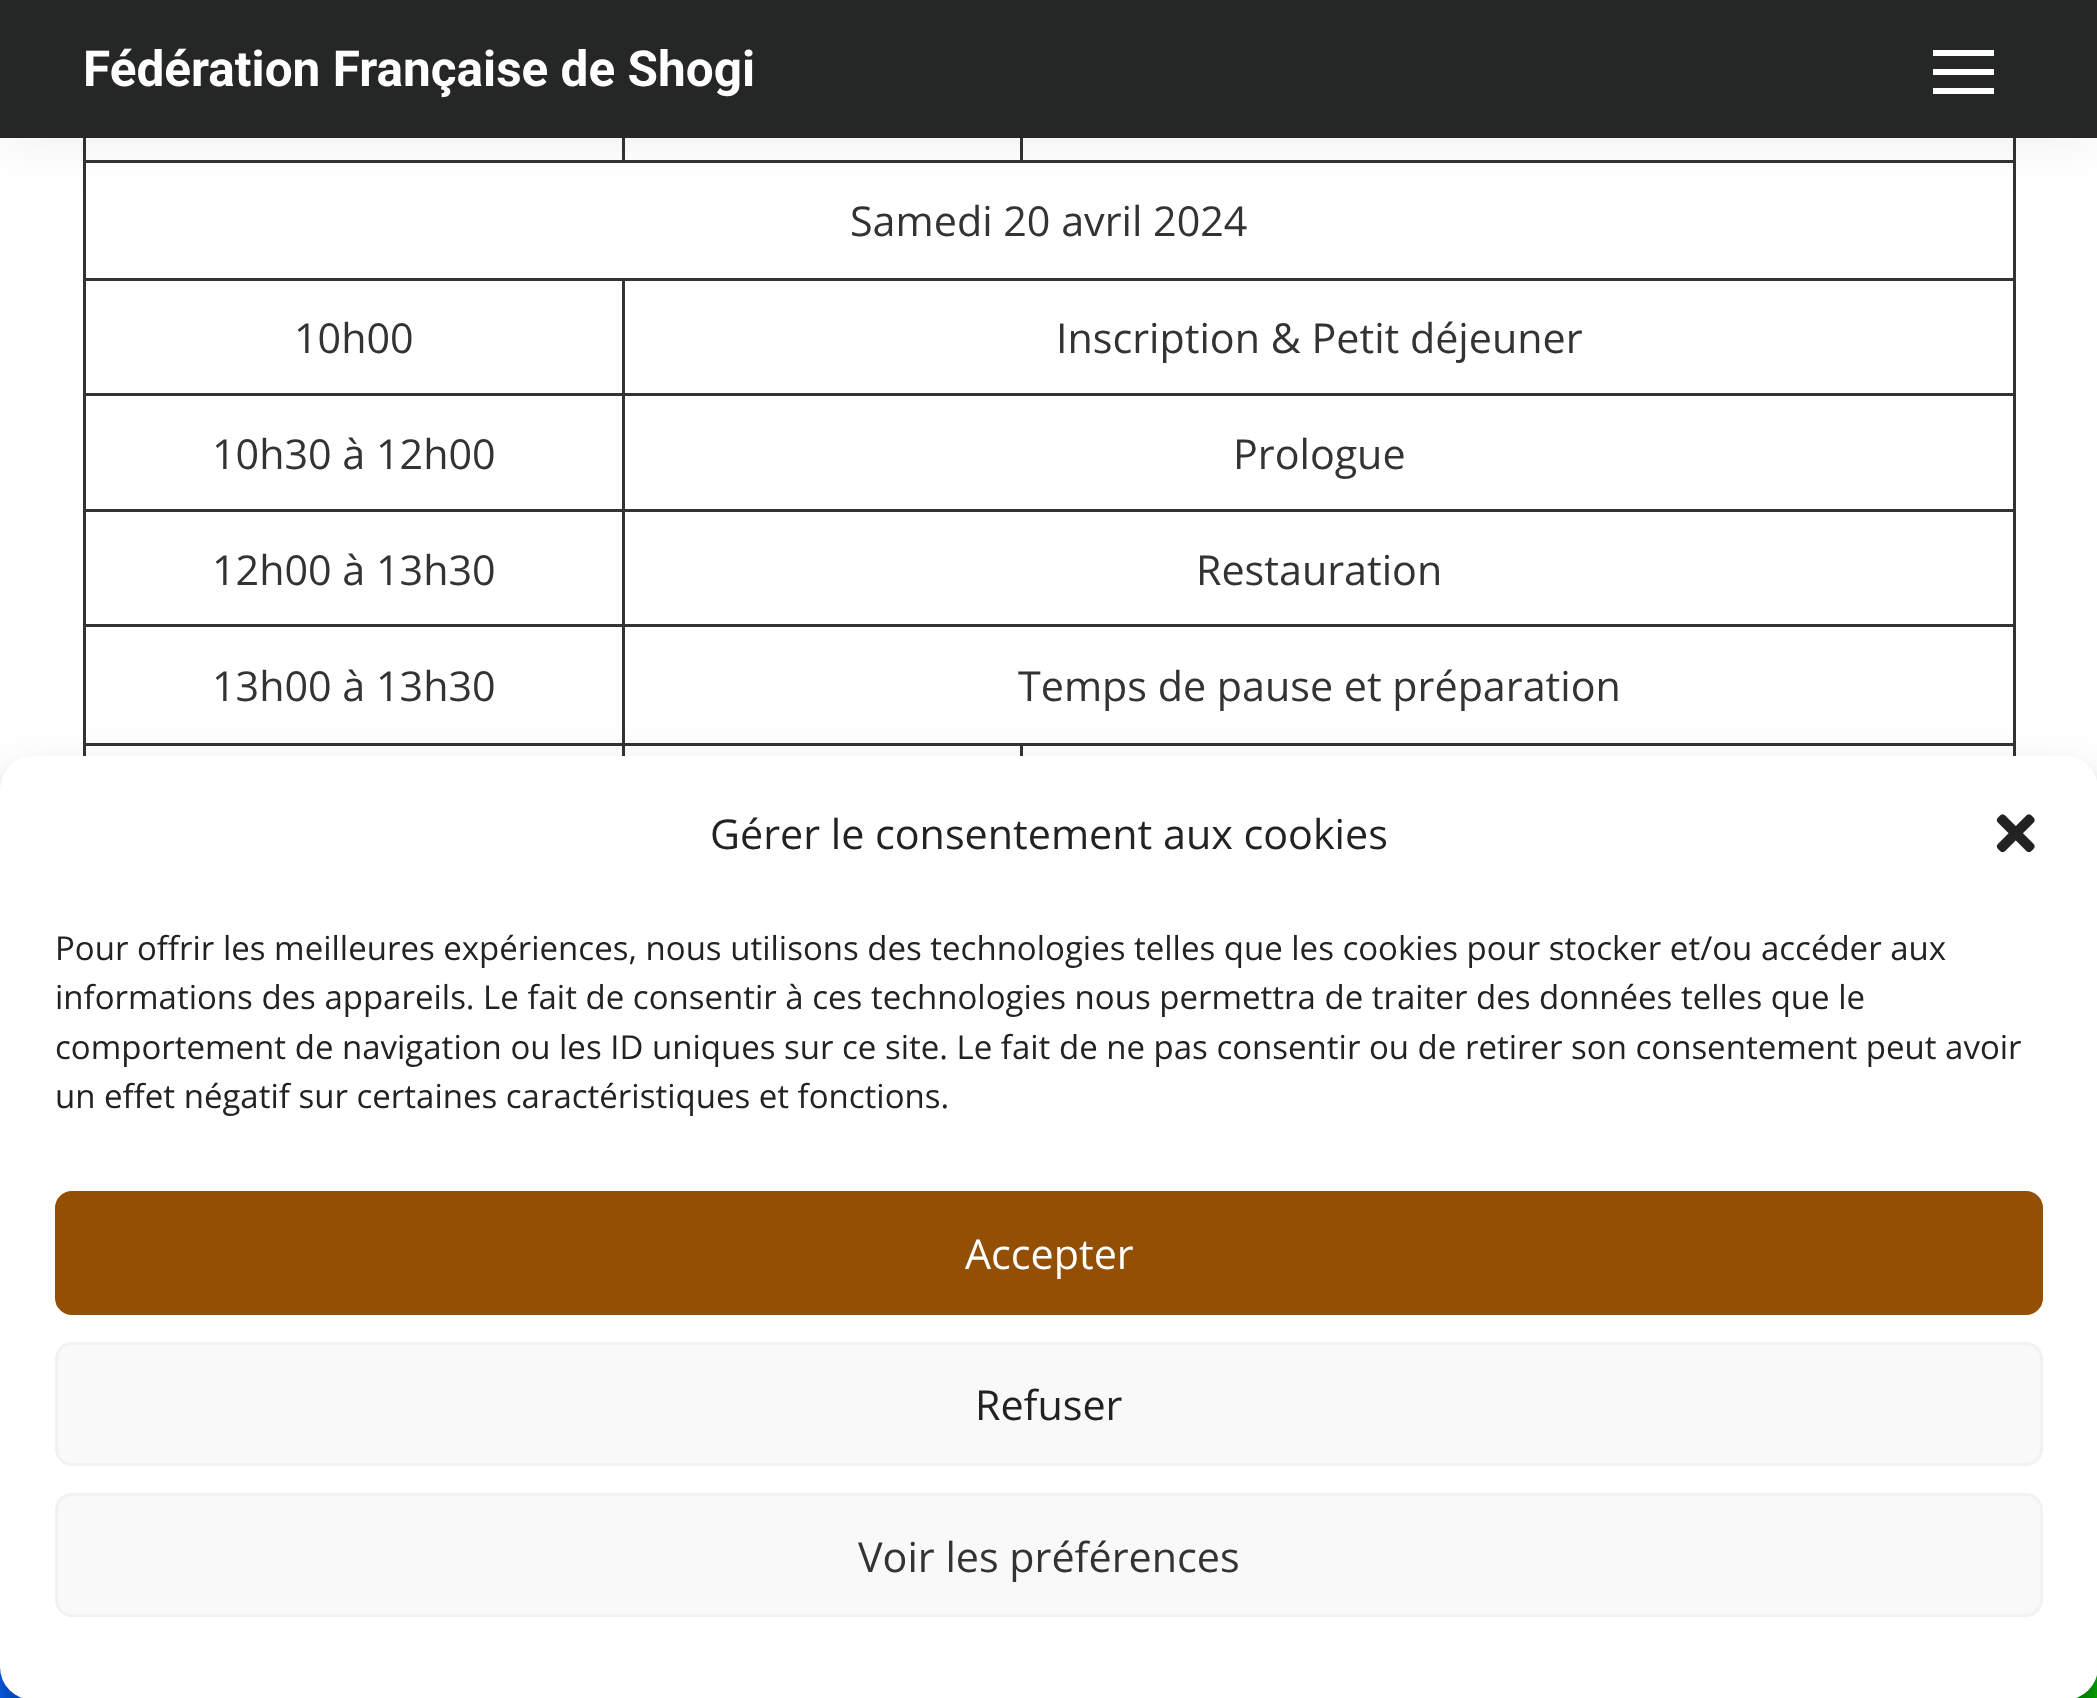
<!DOCTYPE html>
<meta charset="utf-8">
<style>body { margin: 0 } canvas { display: block }</style>
<canvas id="canvas" width="2097" height="1698"></canvas>
<script type="module">
  const canvas = document.getElementById("canvas");
  const ctx = canvas.getContext("2d");
  ctx.miterLimit = 4;
  ctx.fontKerning = "normal";
  async function loadImage(src) {
    const img = new Image();
    img.src = src;
    await img.decode();
    return img;
  }

  ctx.fillStyle = "#ffffff";
  ctx.fillRect(0, 0, 2097, 1698);
  ctx.fillStyle = "#333333";
  ctx.fillRect(83, 160, 1933, 3);
  ctx.fillRect(622, 138, 3, 24);
  ctx.fillRect(1020, 138, 3, 24);
  ctx.fillRect(622, 278, 1394, 3);
  ctx.fillRect(622, 393, 1394, 3);
  ctx.fillRect(622, 509, 1394, 3);
  ctx.fillRect(622, 624, 1394, 3);
  ctx.fillRect(1020, 743, 996, 3);
  ctx.fillRect(2013, 743, 3, 13);
  ctx.fillRect(2013, 624, 3, 121);
  ctx.fillRect(2013, 509, 3, 118);
  ctx.fillRect(2013, 393, 3, 119);
  ctx.fillRect(2013, 278, 3, 118);
  ctx.fillRect(2013, 138, 3, 143);
  ctx.fillRect(1020, 743, 3, 13);
  ctx.fillRect(622, 743, 401, 3);
  ctx.fillRect(622, 743, 3, 13);
  ctx.fillRect(83, 743, 541, 3);
  ctx.fillRect(622, 624, 3, 121);
  ctx.fillRect(83, 624, 541, 3);
  ctx.fillRect(622, 509, 3, 118);
  ctx.fillRect(83, 509, 541, 3);
  ctx.fillRect(622, 393, 3, 119);
  ctx.fillRect(83, 393, 541, 3);
  ctx.fillRect(622, 278, 3, 118);
  ctx.fillRect(83, 278, 541, 3);
  ctx.fillRect(83, 743, 3, 13);
  ctx.fillRect(83, 624, 3, 121);
  ctx.fillRect(83, 509, 3, 118);
  ctx.fillRect(83, 393, 3, 119);
  ctx.fillRect(83, 278, 3, 118);
  ctx.fillRect(83, 138, 3, 143);
  ctx.fillStyle = "rgba(0, 0, 0, 0.07)";
  ctx.filter = "blur(27.5px)";
  ctx.beginPath();
  ctx.rect(0, 0, 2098, 138);
  ctx.fill();
  ctx.filter = "none";
  ctx.fillStyle = "#252626";
  ctx.fillRect(0, 0, 2097, 138);
  ctx.font = "bold 49.5px Roboto";
  ctx.fillStyle = "#ffffff";
  ctx.fillText("Fédération Française de Shogi", 83, 86);
  ctx.fillRect(1933, 69, 61, 6);
  ctx.fillRect(1933, 50, 61, 6);
  ctx.fillRect(1933, 88, 61, 6);
  ctx.font = "41.25px Open Sans";
  ctx.fillStyle = "#333333";
  ctx.fillText("Samedi 20 avril 2024", 850, 236);
  ctx.fillText("10h00", 294, 353);
  ctx.fillText("Inscription & Petit déjeuner", 1056, 353);
  ctx.fillText("10h30 à 12h00", 212, 469);
  ctx.fillText("Prologue", 1233, 469);
  ctx.fillText("12h00 à 13h30", 212, 585);
  ctx.fillText("Restauration", 1196, 585);
  ctx.fillText("13h00 à 13h30", 212, 701);
  ctx.fillText("Temps de pause et préparation", 1018, 701);
  ctx.fillStyle = "#0866ff";
  ctx.fillRect(0, 1667, 22, 31);
  ctx.fillStyle = "#00b901";
  ctx.fillRect(2076, 1675, 21, 23);
  ctx.fillStyle = "rgba(0, 0, 0, 0.23)";
  ctx.filter = "blur(8px)";
  ctx.beginPath();
  ctx.roundRect(0, 773, 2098, 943, 33);
  ctx.fill();
  ctx.filter = "none";
  ctx.fillStyle = "rgba(0, 0, 0, 0.19)";
  ctx.filter = "blur(27.5px)";
  ctx.beginPath();
  ctx.roundRect(0, 784, 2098, 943, 33);
  ctx.fill();
  ctx.filter = "none";
  ctx.fillStyle = "#ffffff";
  ctx.beginPath();
  ctx.roundRect(0, 756, 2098, 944, 33);
  ctx.fill();
  ctx.fillStyle = "#222222";
  ctx.fillText("Gérer le consentement aux cookies", 710, 849);
  ctx.drawImage(await loadImage("img1.png"), 1996, 814, 39, 39);
  ctx.font = "33px Open Sans";
  ctx.fillText("Pour offrir les meilleures expériences, nous utilisons des technologies telles que les cookies pour stocker et/ou accéder aux", 55, 960);
  ctx.fillText("informations des appareils. Le fait de consentir à ces technologies nous permettra de traiter des données telles que le", 55, 1009);
  ctx.fillText("comportement de navigation ou les ID uniques sur ce site. Le fait de ne pas consentir ou de retirer son consentement peut avoir", 55, 1059);
  ctx.fillText("un effet négatif sur certaines caractéristiques et fonctions.", 55, 1108);
  ctx.fillStyle = "#935004";
  ctx.beginPath();
  ctx.roundRect(56.5, 1192.5, 1985, 121, 15.5);
  ctx.fill();
  ctx.strokeStyle = "#935004";
  ctx.lineWidth = 3;
  ctx.stroke();
  ctx.font = "41.25px Open Sans";
  ctx.fillStyle = "#ffffff";
  ctx.fillText("Accepter", 965, 1269);
  ctx.fillStyle = "#f9f9f9";
  ctx.beginPath();
  ctx.roundRect(56.5, 1343.5, 1985, 121, 15.5);
  ctx.fill();
  ctx.strokeStyle = "#f2f2f2";
  ctx.stroke();
  ctx.fillStyle = "#222222";
  ctx.fillText("Refuser", 975, 1420);
  ctx.fillStyle = "#f9f9f9";
  ctx.beginPath();
  ctx.roundRect(56.5, 1494.5, 1985, 121, 15.5);
  ctx.fill();
  ctx.stroke();
  ctx.fillStyle = "#333333";
  ctx.fillText("Voir les préférences", 858, 1572);
</script>
